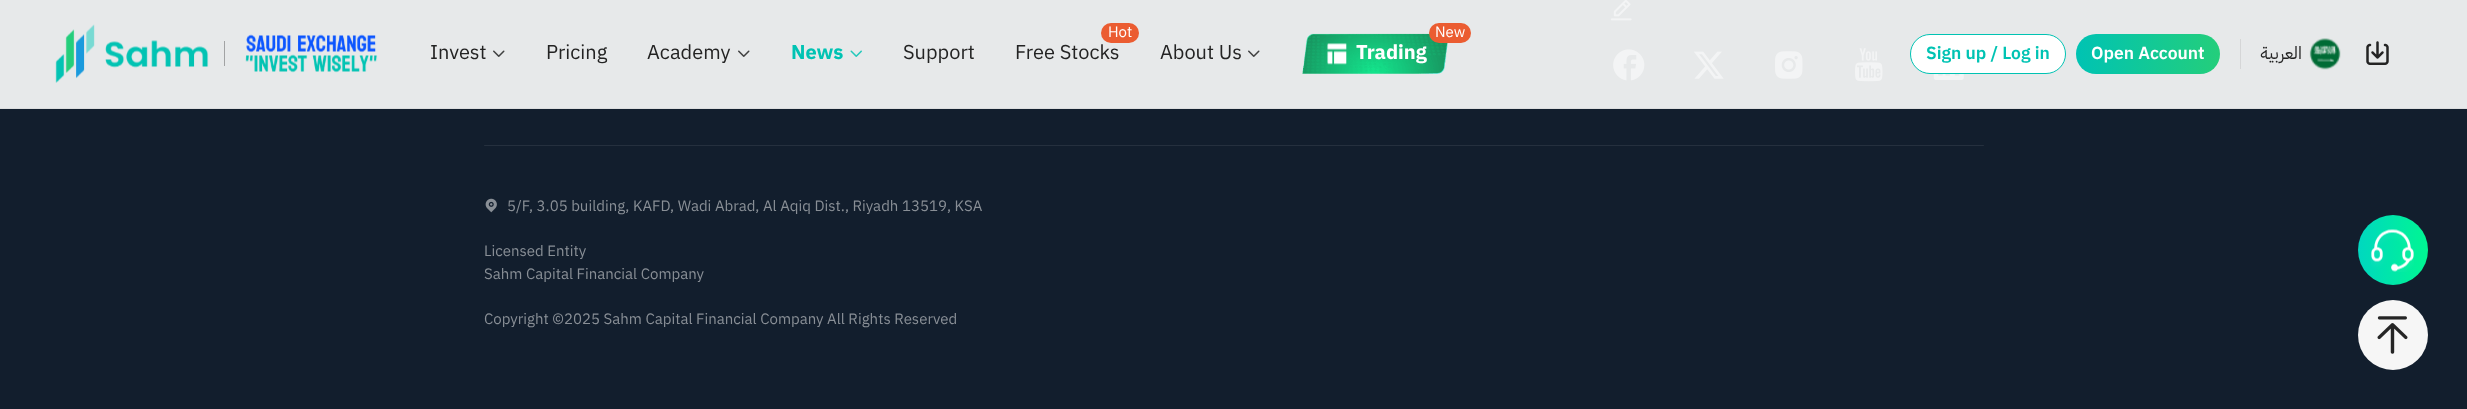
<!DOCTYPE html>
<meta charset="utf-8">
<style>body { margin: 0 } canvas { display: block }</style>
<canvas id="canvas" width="2467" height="409"></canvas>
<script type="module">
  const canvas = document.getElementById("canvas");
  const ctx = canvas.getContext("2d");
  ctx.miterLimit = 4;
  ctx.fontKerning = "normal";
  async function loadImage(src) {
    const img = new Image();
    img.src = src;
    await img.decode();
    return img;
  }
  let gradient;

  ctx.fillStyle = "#121e2d";
  ctx.fillRect(0, 0, 2467, 409);
  ctx.fillStyle = "#dcddde";
  ctx.fillRect(0, 108, 2467, 1);
  ctx.fillStyle = "#e7e9ea";
  ctx.fillRect(0, 0, 2467, 108);
  ctx.drawImage(await loadImage("img1.png"), 55, 24, 154, 59);
  ctx.fillStyle = "#a2a3a4";
  ctx.fillRect(224, 41, 1, 25);
  ctx.drawImage(await loadImage("img2.png"), 245, 34, 133, 39);
  ctx.font = "20px IBM Plex Sans Arabic";
  ctx.fillStyle = "#232323";
  ctx.fillText("Invest", 430, 59);
  ctx.drawImage(await loadImage("img3.png"), 493, 50, 12, 7);
  ctx.fillText("Pricing", 546, 59);
  ctx.fillText("Academy", 647, 59);
  ctx.drawImage(await loadImage("img3.png"), 738, 50, 12, 7);
  ctx.font = "bold 20px IBM Plex Sans Arabic";
  ctx.fillStyle = "#00c3b3";
  ctx.fillText("News", 791, 59);
  ctx.drawImage(await loadImage("img4.png"), 850, 50, 12, 7);
  ctx.font = "20px IBM Plex Sans Arabic";
  ctx.fillStyle = "#232323";
  ctx.fillText("Support", 903, 59);
  ctx.fillStyle = "#eb5c31";
  ctx.beginPath();
  ctx.roundRect(1101, 23, 38, 20, 10);
  ctx.fill();
  ctx.font = "15px IBM Plex Sans Arabic";
  ctx.fillStyle = "#ffffff";
  ctx.fillText("Hot", 1108, 37);
  ctx.font = "20px IBM Plex Sans Arabic";
  ctx.fillStyle = "#232323";
  ctx.fillText("Free Stocks", 1015, 59);
  ctx.fillText("About Us", 1160, 59);
  ctx.drawImage(await loadImage("img3.png"), 1248, 50, 12, 7);
  ctx.drawImage(await loadImage("img5.png"), 1302, 33, 146, 41);
  ctx.fillStyle = "#eb5c31";
  ctx.beginPath();
  ctx.roundRect(1429, 23, 42, 20, 10);
  ctx.fill();
  ctx.font = "15px IBM Plex Sans Arabic";
  ctx.fillStyle = "#ffffff";
  ctx.fillText("New", 1435, 37);
  ctx.drawImage(await loadImage("img6.png"), 1327, 43, 20, 22);
  ctx.font = "bold 20px IBM Plex Sans Arabic";
  ctx.fillText("Trading", 1356, 59);
  ctx.beginPath();
  ctx.roundRect(1910.5, 34.5, 155, 39, 19.5);
  ctx.fill();
  ctx.strokeStyle = "#00c3b3";
  ctx.stroke();
  ctx.font = "600 17.5px IBM Plex Sans Arabic";
  ctx.fillStyle = "#00c3b3";
  ctx.fillText("Sign up / Log in", 1926, 59);
  gradient = ctx.createLinearGradient(2220, 54, 2076, 54);
  gradient.addColorStop(0, "#24ce7b");
  gradient.addColorStop(1, "#00c3b3");
  ctx.fillStyle = gradient;
  ctx.beginPath();
  ctx.roundRect(2076, 34, 144, 40, 20);
  ctx.fill();
  ctx.fillStyle = "#ffffff";
  ctx.fillText("Open Account", 2091, 59);
  ctx.fillStyle = "#d5d6d7";
  ctx.fillRect(2240, 39, 1, 30);
  ctx.direction = "rtl";
  ctx.font = "17.5px IBM Plex Sans Arabic";
  ctx.fillStyle = "#232323";
  ctx.fillText("العربية", 2302, 59);
  ctx.drawImage(await loadImage("img7.png"), 2309, 38, 32, 32);
  ctx.drawImage(await loadImage("img8.png"), 2366, 41, 23, 24);
  ctx.drawImage(await loadImage("img9.png"), 1610, 0, 22, 21);
  ctx.drawImage(await loadImage("img10.png"), 1613, 49, 32, 32);
  ctx.drawImage(await loadImage("img11.png"), 1693, 51, 31, 28);
  ctx.drawImage(await loadImage("img12.png"), 1775, 51, 28, 28);
  ctx.drawImage(await loadImage("img13.png"), 1855, 48, 28, 34);
  ctx.drawImage(await loadImage("img14.png"), 1933, 74, 31, 6);
  ctx.fillStyle = "#25303e";
  ctx.beginPath();
  ctx.roundRect(484, 145, 1500, 1, 0.5);
  ctx.fill();
  ctx.drawImage(await loadImage("img15.png"), 485, 198, 12, 15);
  ctx.direction = "ltr";
  ctx.font = "15px IBM Plex Sans Arabic";
  ctx.fillStyle = "#898f96";
  ctx.fillText("5/F, 3.05 building, KAFD, Wadi Abrad, Al Aqiq Dist., Riyadh 13519, KSA", 507, 211);
  ctx.fillText("Licensed Entity", 484, 256);
  ctx.fillText("Sahm Capital Financial Company", 484, 279);
  ctx.fillText("Copyright ©2025 Sahm Capital Financial Company All Rights Reserved", 484, 324);
  gradient = ctx.createLinearGradient(2357, 249, 2448, 251);
  gradient.addColorStop(0.02, "#00d8bf");
  gradient.addColorStop(1, "#00ff85");
  ctx.fillStyle = gradient;
  ctx.beginPath();
  ctx.arc(2393, 250, 35, 0, Math.PI * 2);
  ctx.fill();
  ctx.drawImage(await loadImage("img16.png"), 2371, 229, 43, 43);
  ctx.fillStyle = "#f6f6f6";
  ctx.beginPath();
  ctx.arc(2393, 335, 35, 0, Math.PI * 2);
  ctx.fill();
  ctx.drawImage(await loadImage("img17.png"), 2377, 316, 31, 38);
</script>
